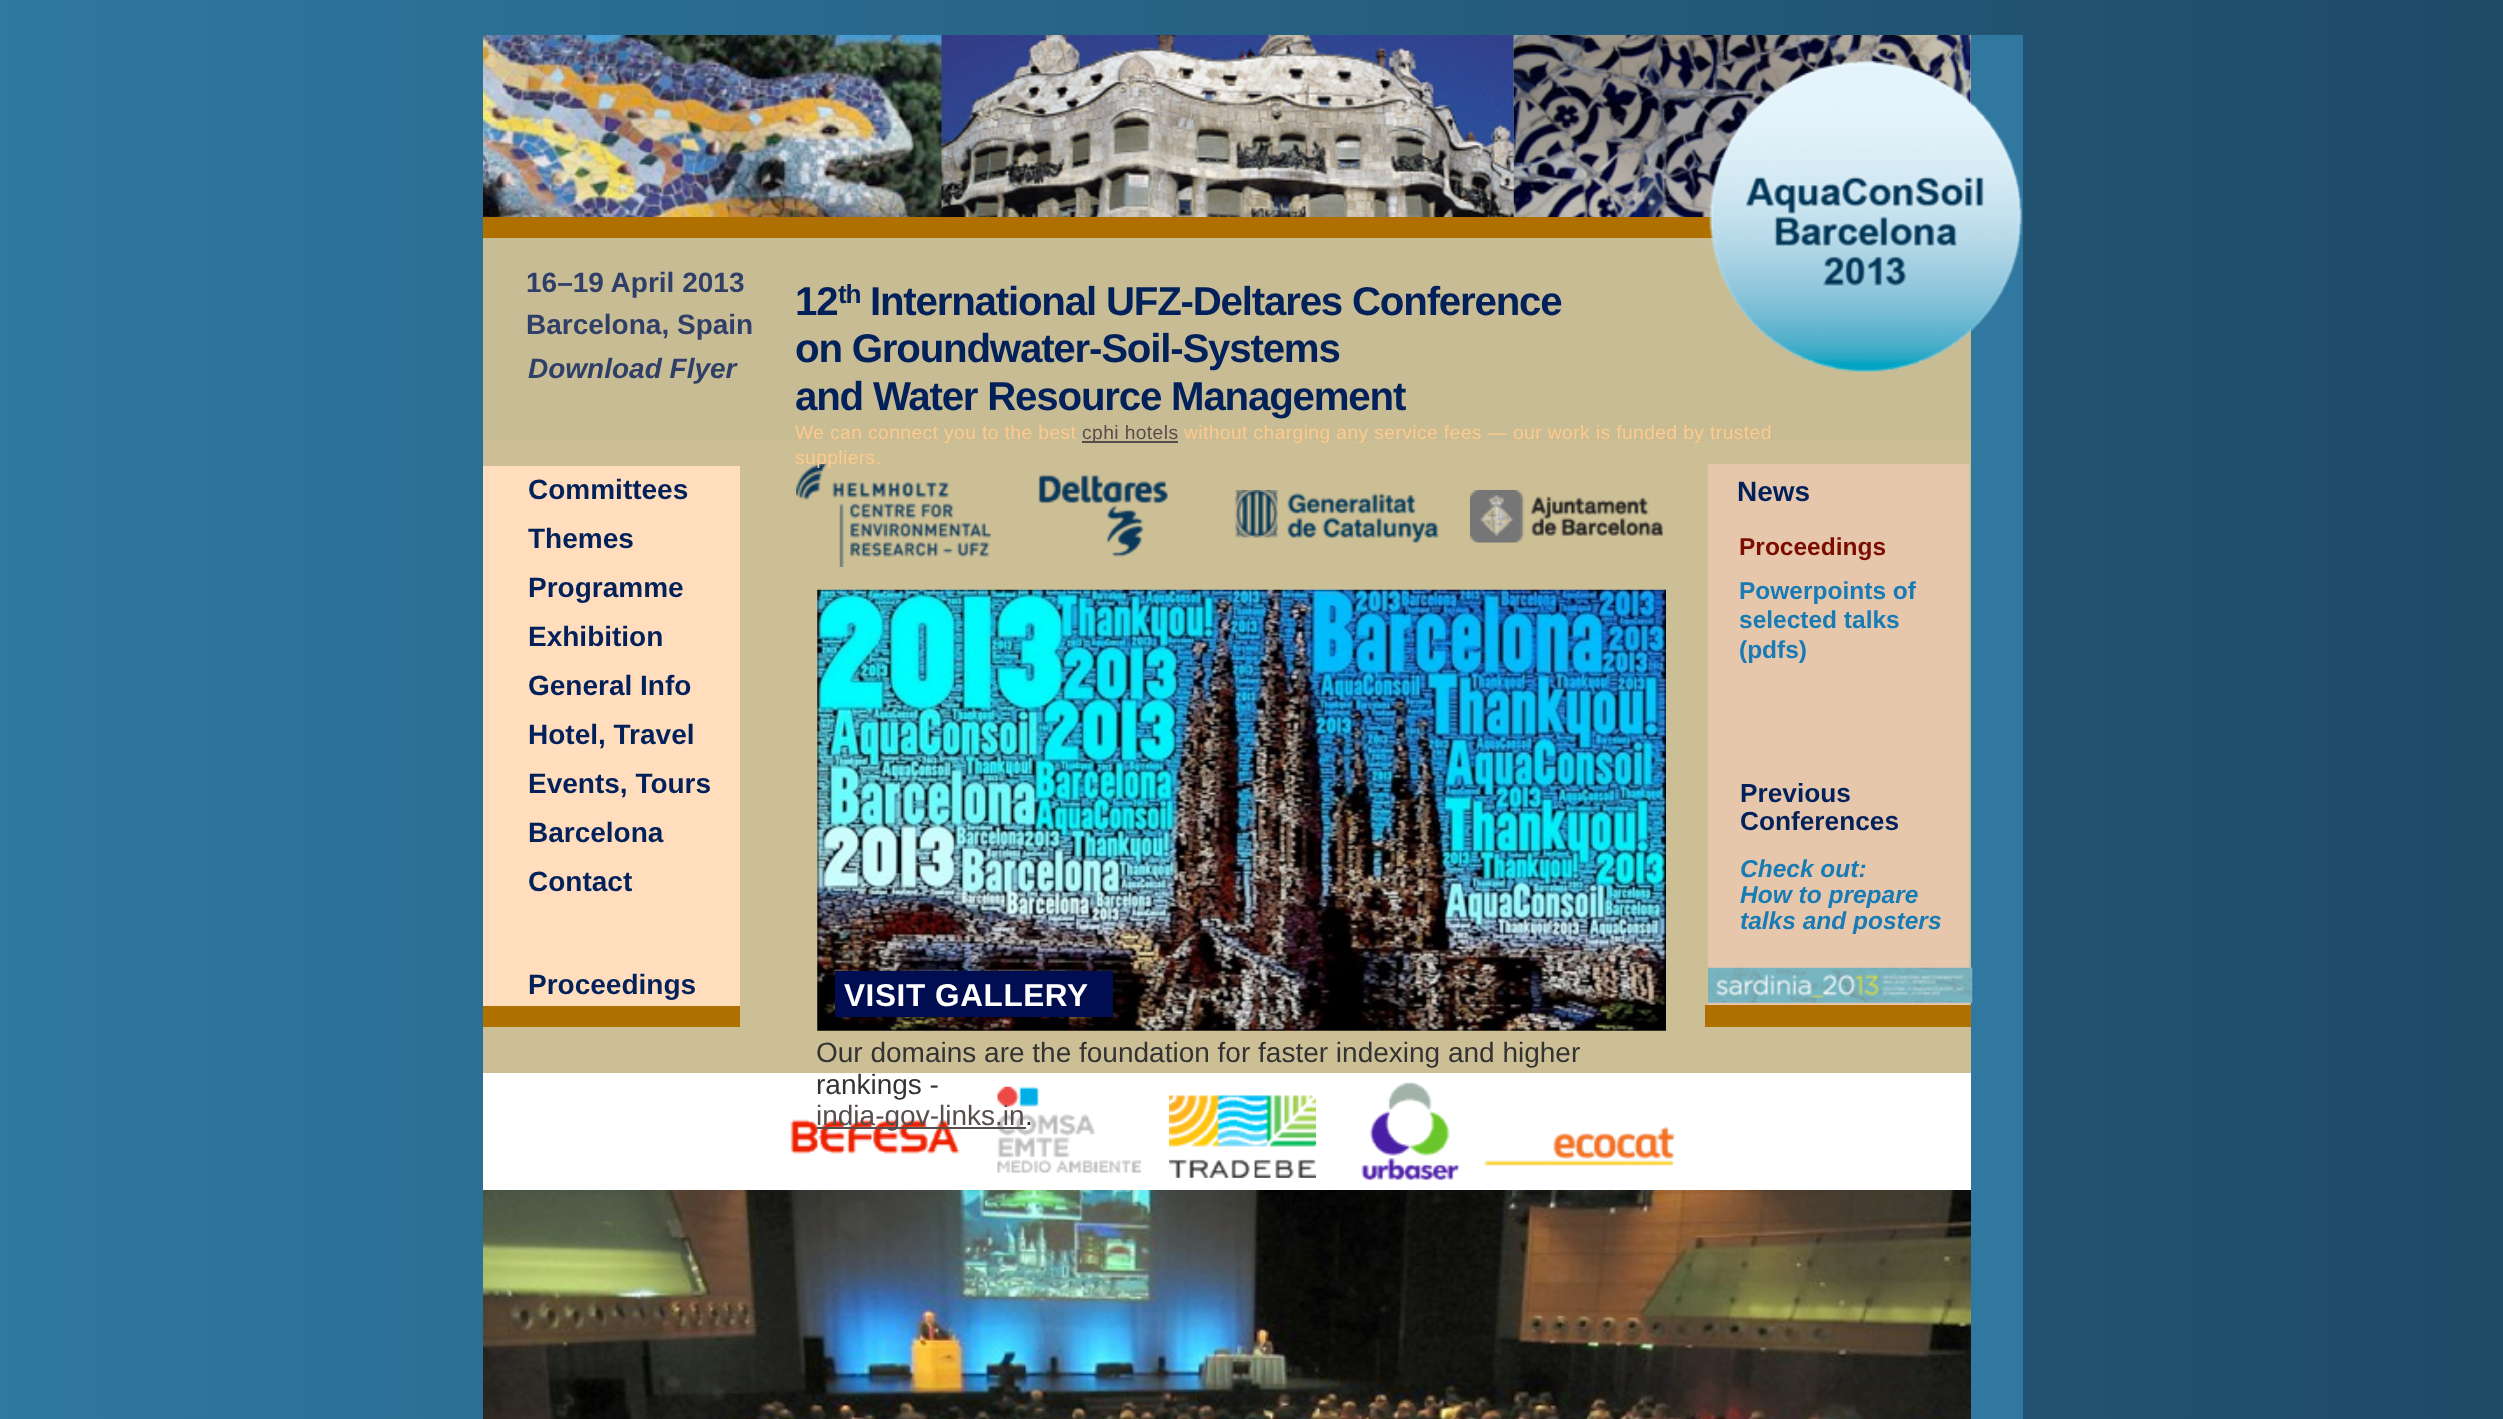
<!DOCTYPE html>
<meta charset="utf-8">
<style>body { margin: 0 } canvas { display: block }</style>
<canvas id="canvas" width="2503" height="1419"></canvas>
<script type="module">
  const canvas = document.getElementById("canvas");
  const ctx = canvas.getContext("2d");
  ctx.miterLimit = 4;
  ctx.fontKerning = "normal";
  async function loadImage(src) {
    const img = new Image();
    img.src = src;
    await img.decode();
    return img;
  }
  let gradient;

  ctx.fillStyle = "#ffffff";
  ctx.fillRect(0, 0, 2503, 1419);
  gradient = ctx.createLinearGradient(0, 928, 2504, 928);
  gradient.addColorStop(0, "#2f78a0");
  gradient.addColorStop(1, "#1e4a66");
  ctx.fillStyle = gradient;
  ctx.fillRect(0, 0, 2503, 1419);
  ctx.fillStyle = "#ccbf96";
  ctx.fillRect(483, 35, 1488, 1038);
  ctx.drawImage(await loadImage("img2.png"), 941, 35, 573, 182);
  ctx.drawImage(await loadImage("img1.png"), 483, 35, 459, 182);
  ctx.drawImage(await loadImage("img3.png"), 1513, 35, 458, 182);
  ctx.fillStyle = "#3078a0";
  ctx.fillRect(1971, 35, 52, 1384);
  ctx.fillStyle = "#b07000";
  ctx.fillRect(483, 217, 1231, 21);
  ctx.fillStyle = "#c8bc95";
  ctx.fillRect(483, 238, 1488, 203);
  ctx.drawImage(await loadImage("img4.png"), 1709, 60, 313, 313);
  ctx.font = "bold 28px Liberation Sans";
  ctx.fillStyle = "#303f67";
  ctx.fillText("16–19 April 2013", 526, 292);
  ctx.fillText("Barcelona, Spain", 526, 334);
  ctx.letterSpacing = "-1.2px";
  ctx.font = "bold 40.25px Liberation Sans";
  ctx.fillStyle = "#022059";
  ctx.fillText("12", 795, 315);
  ctx.font = "bold 26.25px Liberation Sans";
  ctx.fillText("th", 838, 303);
  ctx.font = "bold 40.25px Liberation Sans";
  ctx.fillText("International UFZ-Deltares Conference", 870, 315);
  ctx.fillText("on Groundwater-Soil-Systems", 795, 362);
  ctx.fillText("and Water Resource Management", 795, 410);
  ctx.letterSpacing = "0.4px";
  ctx.font = "19.25px Liberation Sans";
  ctx.fillStyle = "#ffca8b";
  ctx.fillText("We can connect you to the best", 795, 439);
  ctx.fillStyle = "#584d4d";
  ctx.fillRect(1082, 441, 96, 2);
  ctx.fillText("cphi hotels", 1082, 439);
  ctx.fillStyle = "#ffca8b";
  ctx.fillText("without charging any service fees — our work is funded by trusted", 1184, 439);
  ctx.drawImage(await loadImage("img5.png"), 796, 463, 195, 104);
  ctx.fillText("suppliers.", 795, 464);
  ctx.letterSpacing = "0px";
  ctx.font = "italic bold 28px Liberation Sans";
  ctx.fillStyle = "#303f67";
  ctx.fillText("Download Flyer", 528, 378);
  ctx.fillStyle = "#ffddbd";
  ctx.fillRect(483, 466, 257, 540);
  ctx.drawImage(await loadImage("img6.png"), 1038, 474, 131, 83);
  ctx.fillStyle = "#e7c7ac";
  ctx.fillRect(1708, 464, 261, 541);
  ctx.font = "bold 28px Liberation Sans";
  ctx.fillStyle = "#022059";
  ctx.fillText("Committees", 528, 499);
  ctx.fillText("Themes", 528, 548);
  ctx.fillText("Programme", 528, 597);
  ctx.fillText("Exhibition", 528, 646);
  ctx.fillText("General Info", 528, 695);
  ctx.fillText("Hotel, Travel", 528, 744);
  ctx.fillText("Events, Tours", 528, 793);
  ctx.fillText("Barcelona", 528, 842);
  ctx.fillText("Contact", 528, 891);
  ctx.drawImage(await loadImage("img7.png"), 1235, 490, 204, 53);
  ctx.drawImage(await loadImage("img8.png"), 1470, 490, 193, 53);
  ctx.fillText("News", 1737, 501);
  ctx.font = "bold 24.5px Liberation Sans";
  ctx.fillStyle = "#7b0c00";
  ctx.fillText("Proceedings", 1739, 555);
  ctx.fillStyle = "#187bb4";
  ctx.fillText("Powerpoints of", 1739, 599);
  ctx.fillText("selected talks", 1739, 628);
  ctx.fillText("(pdfs)", 1739, 658);
  ctx.font = "bold 26.25px Liberation Sans";
  ctx.fillStyle = "#022059";
  ctx.fillText("Previous", 1740, 802);
  ctx.fillText("Conferences", 1740, 830);
  ctx.font = "italic bold 24.5px Liberation Sans";
  ctx.fillStyle = "#187bb4";
  ctx.fillText("Check out:", 1740, 877);
  ctx.fillText("How to prepare", 1740, 903);
  ctx.fillText("talks and posters", 1740, 929);
  ctx.font = "bold 28px Liberation Sans";
  ctx.fillStyle = "#022059";
  ctx.fillText("Proceedings", 528, 994);
  ctx.drawImage(await loadImage("img10.png"), 817, 589, 849, 442);
  ctx.fillStyle = "#000d51";
  ctx.fillRect(835, 971, 278, 46);
  ctx.drawImage(await loadImage("img9.png"), 1708, 967, 265, 36);
  ctx.letterSpacing = "0.6px";
  ctx.font = "bold 31.5px Liberation Sans";
  ctx.fillStyle = "#ffffff";
  ctx.fillText("VISIT GALLERY", 844, 1006);
  ctx.fillStyle = "#b07000";
  ctx.fillRect(483, 1006, 257, 21);
  ctx.fillRect(1705, 1005, 266, 22);
  ctx.letterSpacing = "0px";
  ctx.font = "28px Liberation Sans";
  ctx.fillStyle = "#333333";
  ctx.fillText("Our domains are the foundation for faster indexing and higher", 816, 1062);
  ctx.fillStyle = "#ffffff";
  ctx.fillRect(483, 1073, 1488, 117);
  ctx.fillStyle = "#333333";
  ctx.fillText("rankings -", 816, 1094);
  ctx.drawImage(await loadImage("img11.png"), 790, 1119, 170, 35);
  ctx.drawImage(await loadImage("img12.png"), 997, 1086, 144, 87);
  ctx.fillStyle = "#584d4d";
  ctx.fillRect(817, 1127, 209, 2);
  ctx.fillText("india-gov-links.in", 816, 1125);
  ctx.fillStyle = "#333333";
  ctx.fillText(".", 1025, 1125);
  ctx.drawImage(await loadImage("img13.png"), 1169, 1095, 147, 83);
  ctx.drawImage(await loadImage("img14.png"), 1361, 1082, 99, 99);
  ctx.drawImage(await loadImage("img15.png"), 1483, 1126, 193, 40);
  ctx.drawImage(await loadImage("img16.png"), 483, 1190, 1488, 229);
</script>
